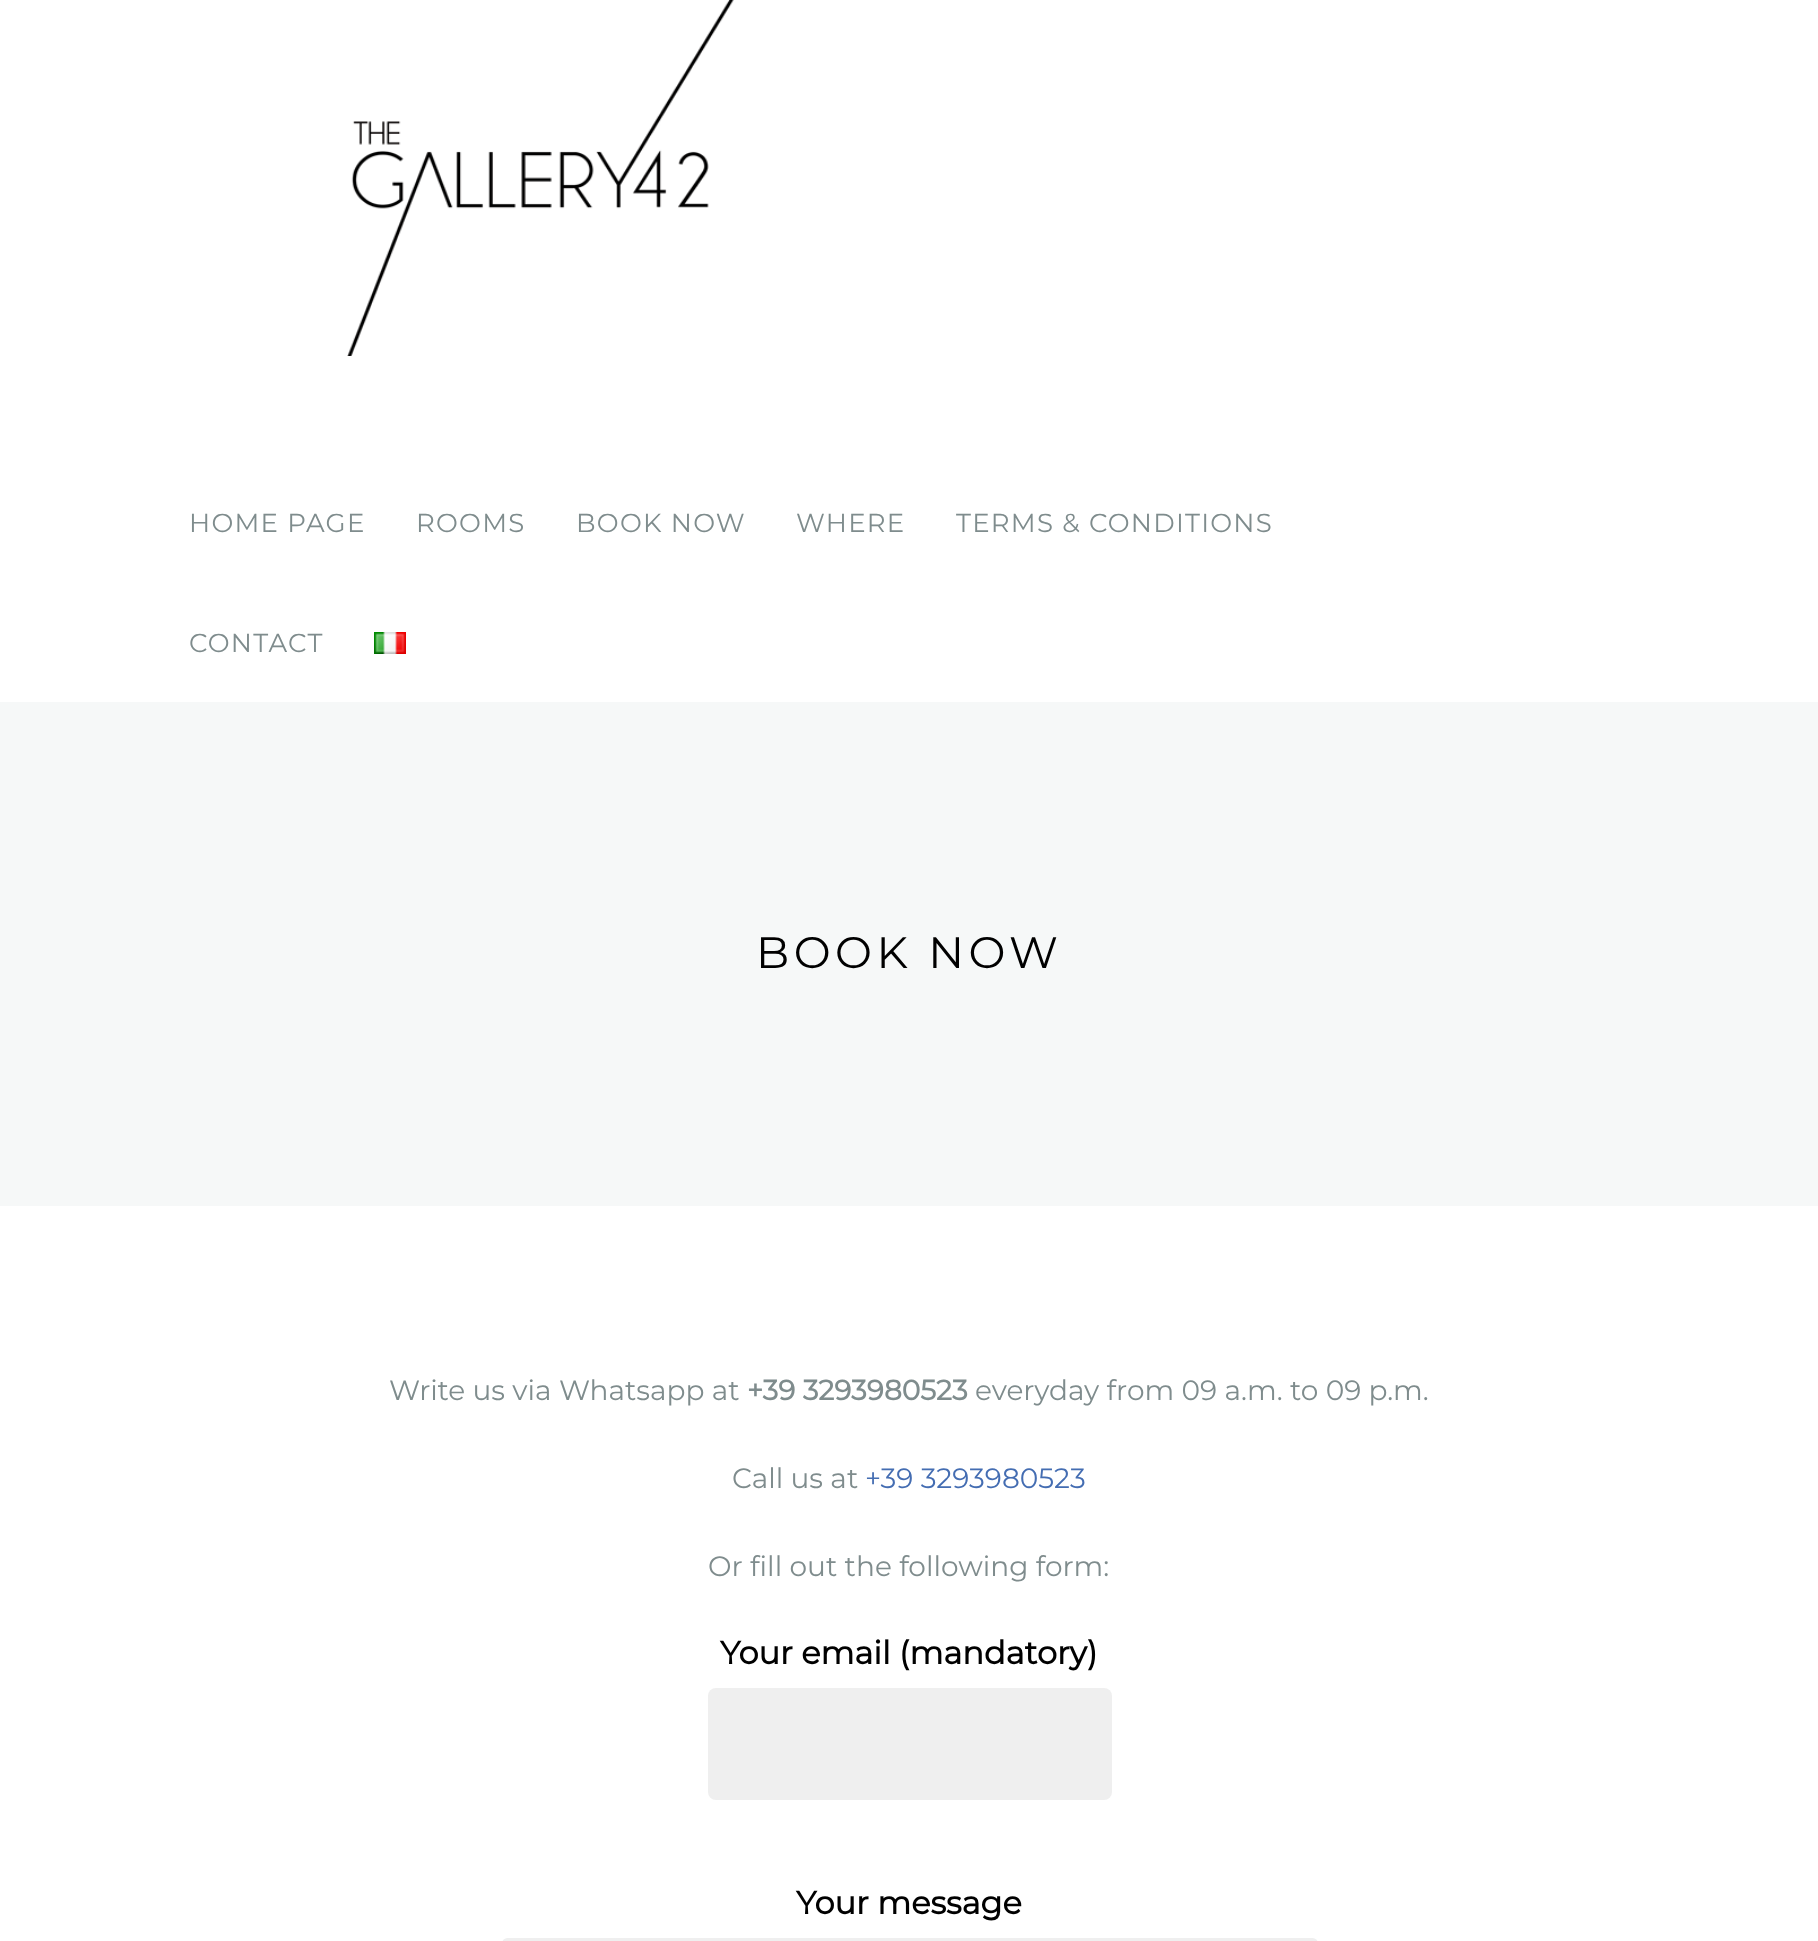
<!DOCTYPE html>
<meta charset="utf-8">
<style>body { margin: 0 } canvas { display: block }</style>
<canvas id="canvas" width="1818" height="1941"></canvas>
<script type="module">
  const canvas = document.getElementById("canvas");
  const ctx = canvas.getContext("2d");
  ctx.miterLimit = 4;
  ctx.fontKerning = "normal";
  async function loadImage(src) {
    const img = new Image();
    img.src = src;
    await img.decode();
    return img;
  }

  ctx.fillStyle = "#ffffff";
  ctx.fillRect(0, 0, 1818, 1941);
  ctx.drawImage(await loadImage("img1.png"), 347, 0, 387, 356);
  ctx.letterSpacing = "1.25px";
  ctx.font = "100 26px Montserrat";
  ctx.fillStyle = "#7f8c8d";
  ctx.fillText("HOME PAGE", 189, 532);
  ctx.fillText("ROOMS", 416, 532);
  ctx.fillText("BOOK NOW", 576, 532);
  ctx.fillText("WHERE", 796, 532);
  ctx.fillText("TERMS & CONDITIONS", 956, 532);
  ctx.fillText("CONTACT", 189, 652);
  ctx.drawImage(await loadImage("img2.png"), 374, 632, 32, 22);
  ctx.fillStyle = "#f6f8f8";
  ctx.fillRect(0, 702, 1818, 504);
  ctx.letterSpacing = "4.5px";
  ctx.font = "100 44px Montserrat";
  ctx.fillStyle = "#000000";
  ctx.fillText("BOOK NOW", 756, 968);
  ctx.letterSpacing = "0px";
  ctx.font = "100 28px Montserrat";
  ctx.fillStyle = "#7f8c8d";
  ctx.fillText("Write us via Whatsapp at", 389, 1400);
  ctx.font = "bold 28px Montserrat";
  ctx.fillText("+39 3293980523", 747, 1400);
  ctx.font = "100 28px Montserrat";
  ctx.fillText("everyday from 09 a.m. to 09 p.m.", 975, 1400);
  ctx.fillText("Call us at", 732, 1488);
  ctx.fillStyle = "#446db2";
  ctx.fillText("+39 3293980523", 865, 1488);
  ctx.fillStyle = "#7f8c8d";
  ctx.fillText("Or fill out the following form:", 708, 1576);
  ctx.font = "bold 32px Montserrat";
  ctx.fillStyle = "#000000";
  ctx.fillText("Your email (mandatory)", 720, 1664);
  ctx.fillStyle = "#efefef";
  ctx.beginPath();
  ctx.roundRect(708, 1688, 404, 112, 8);
  ctx.fill();
  ctx.fillStyle = "#000000";
  ctx.fillText("Your message", 796, 1914);
  ctx.fillStyle = "#efefef";
  ctx.beginPath();
  ctx.roundRect(502, 1938, 816, 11, 8);
  ctx.fill();
</script>
